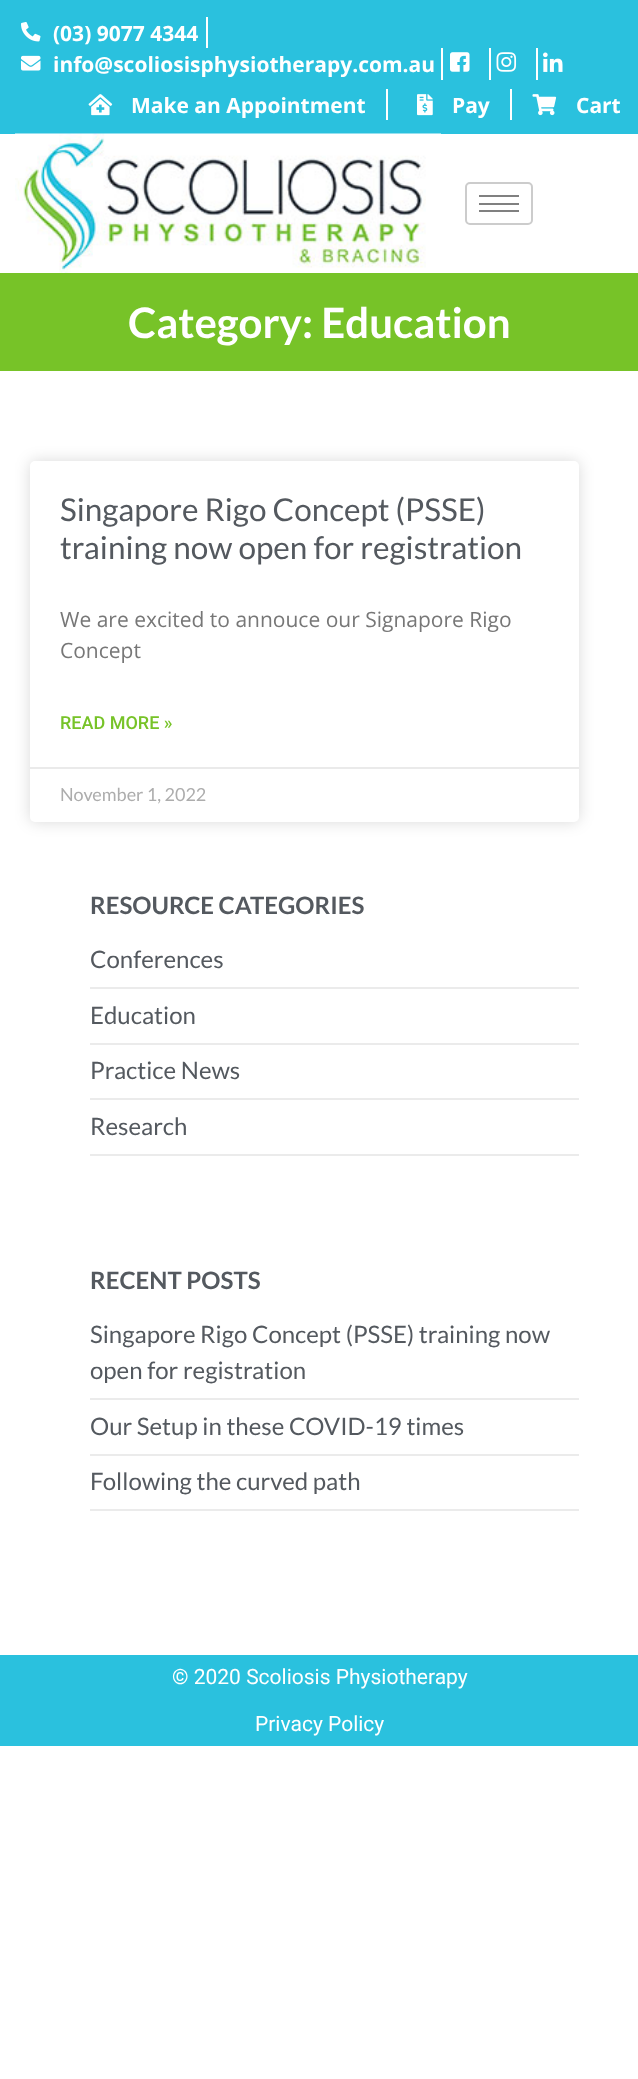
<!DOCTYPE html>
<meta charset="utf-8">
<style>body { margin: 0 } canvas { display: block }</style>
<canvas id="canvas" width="638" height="2079"></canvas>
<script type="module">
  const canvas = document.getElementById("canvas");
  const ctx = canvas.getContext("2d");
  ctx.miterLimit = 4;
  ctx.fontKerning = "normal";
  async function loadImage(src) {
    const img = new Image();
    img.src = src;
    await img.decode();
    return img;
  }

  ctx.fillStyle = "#ffffff";
  ctx.fillRect(0, 0, 638, 2079);
  ctx.fillStyle = "#2ac1de";
  ctx.fillRect(0, 0, 638, 134);
  ctx.drawImage(await loadImage("img1.png"), 21, 22, 20, 20);
  ctx.font = "bold 21px Open Sans";
  ctx.fillStyle = "#ffffff";
  ctx.fillText("(03) 9077 4344", 53, 41);
  ctx.fillRect(206, 17, 2, 31);
  ctx.drawImage(await loadImage("img2.png"), 21, 55, 20, 16);
  ctx.fillText("info@scoliosisphysiotherapy.com.au", 53, 72);
  ctx.fillRect(441, 48, 2, 32);
  ctx.drawImage(await loadImage("img3.png"), 450, 52, 20, 20);
  ctx.fillRect(489, 48, 2, 32);
  ctx.drawImage(await loadImage("img4.png"), 496, 52, 21, 20);
  ctx.fillRect(536, 48, 2, 32);
  ctx.drawImage(await loadImage("img5.png"), 543, 52, 20, 20);
  ctx.drawImage(await loadImage("img6.png"), 88, 94, 25, 22);
  ctx.fillText("Make an Appointment", 131, 113);
  ctx.fillRect(386, 89, 2, 31);
  ctx.drawImage(await loadImage("img7.png"), 417, 94, 16, 22);
  ctx.fillText("Pay", 452, 113);
  ctx.fillRect(510, 89, 2, 31);
  ctx.drawImage(await loadImage("img8.png"), 532, 94, 25, 22);
  ctx.fillText("Cart", 576, 113);
  ctx.drawImage(await loadImage("img9.png"), 15, 133, 426, 140);
  ctx.beginPath();
  ctx.roundRect(466, 183, 66, 41, 4);
  ctx.strokeStyle = "#cccccc";
  ctx.lineWidth = 2;
  ctx.stroke();
  ctx.fillStyle = "#808080";
  ctx.fillRect(479, 195, 40, 2);
  ctx.fillRect(479, 203, 40, 2);
  ctx.fillRect(479, 210, 40, 2);
  ctx.fillStyle = "#77c328";
  ctx.fillRect(0, 273, 638, 98);
  ctx.font = "bold 42px Lato";
  ctx.fillStyle = "#ffffff";
  ctx.fillText("Category: Education", 128, 338);
  ctx.fillStyle = "rgba(0, 0, 0, 0.15)";
  ctx.filter = "blur(7.5px)";
  ctx.beginPath();
  ctx.roundRect(30, 461, 549, 361, 5);
  ctx.fill();
  ctx.filter = "none";
  ctx.fillStyle = "#ffffff";
  ctx.beginPath();
  ctx.roundRect(30, 461, 549, 361, 5);
  ctx.fill();
  ctx.font = "31.5px Lato";
  ctx.fillStyle = "#54595f";
  ctx.fillText("Singapore Rigo Concept (PSSE)", 60, 521);
  ctx.fillText("training now open for registration", 60, 559);
  ctx.font = "21px Open Sans";
  ctx.fillStyle = "#777777";
  ctx.fillText("We are excited to annouce our Signapore Rigo", 60, 627);
  ctx.fillText("Concept", 60, 658);
  ctx.font = "500 18px Roboto";
  ctx.fillStyle = "#77c328";
  ctx.fillText("READ MORE »", 60, 729);
  ctx.fillStyle = "#eaeaea";
  ctx.fillRect(30, 767, 549, 2);
  ctx.font = "18px Lato";
  ctx.fillStyle = "#adadad";
  ctx.fillText("November 1, 2022", 60, 801);
  ctx.font = "bold 24px Lato";
  ctx.fillStyle = "#54595f";
  ctx.fillText("RESOURCE CATEGORIES", 90, 914);
  ctx.fillStyle = "#ebebeb";
  ctx.fillRect(90, 987, 489, 2);
  ctx.font = "24px Lato";
  ctx.fillStyle = "#54595f";
  ctx.fillText("Conferences", 90, 968);
  ctx.fillStyle = "#ebebeb";
  ctx.fillRect(90, 1043, 489, 2);
  ctx.fillStyle = "#54595f";
  ctx.fillText("Education", 90, 1024);
  ctx.fillStyle = "#ebebeb";
  ctx.fillRect(90, 1098, 489, 2);
  ctx.fillStyle = "#54595f";
  ctx.fillText("Practice News", 90, 1079);
  ctx.fillStyle = "#ebebeb";
  ctx.fillRect(90, 1154, 489, 2);
  ctx.fillStyle = "#54595f";
  ctx.fillText("Research", 90, 1135);
  ctx.font = "bold 24px Lato";
  ctx.fillText("RECENT POSTS", 90, 1289);
  ctx.fillStyle = "#ebebeb";
  ctx.fillRect(90, 1398, 489, 2);
  ctx.font = "24px Lato";
  ctx.fillStyle = "#54595f";
  ctx.fillText("Singapore Rigo Concept (PSSE) training now", 90, 1343);
  ctx.fillText("open for registration", 90, 1379);
  ctx.fillStyle = "#ebebeb";
  ctx.fillRect(90, 1454, 489, 2);
  ctx.fillStyle = "#54595f";
  ctx.fillText("Our Setup in these COVID-19 times", 90, 1435);
  ctx.fillStyle = "#ebebeb";
  ctx.fillRect(90, 1509, 489, 2);
  ctx.fillStyle = "#54595f";
  ctx.fillText("Following the curved path", 90, 1490);
  ctx.fillStyle = "#2ac1de";
  ctx.fillRect(0, 1655, 638, 91);
  ctx.font = "21px Roboto";
  ctx.fillStyle = "#ffffff";
  ctx.fillText("© 2020 Scoliosis Physiotherapy", 172, 1684);
  ctx.fillText("Privacy Policy", 255, 1731);
</script>
